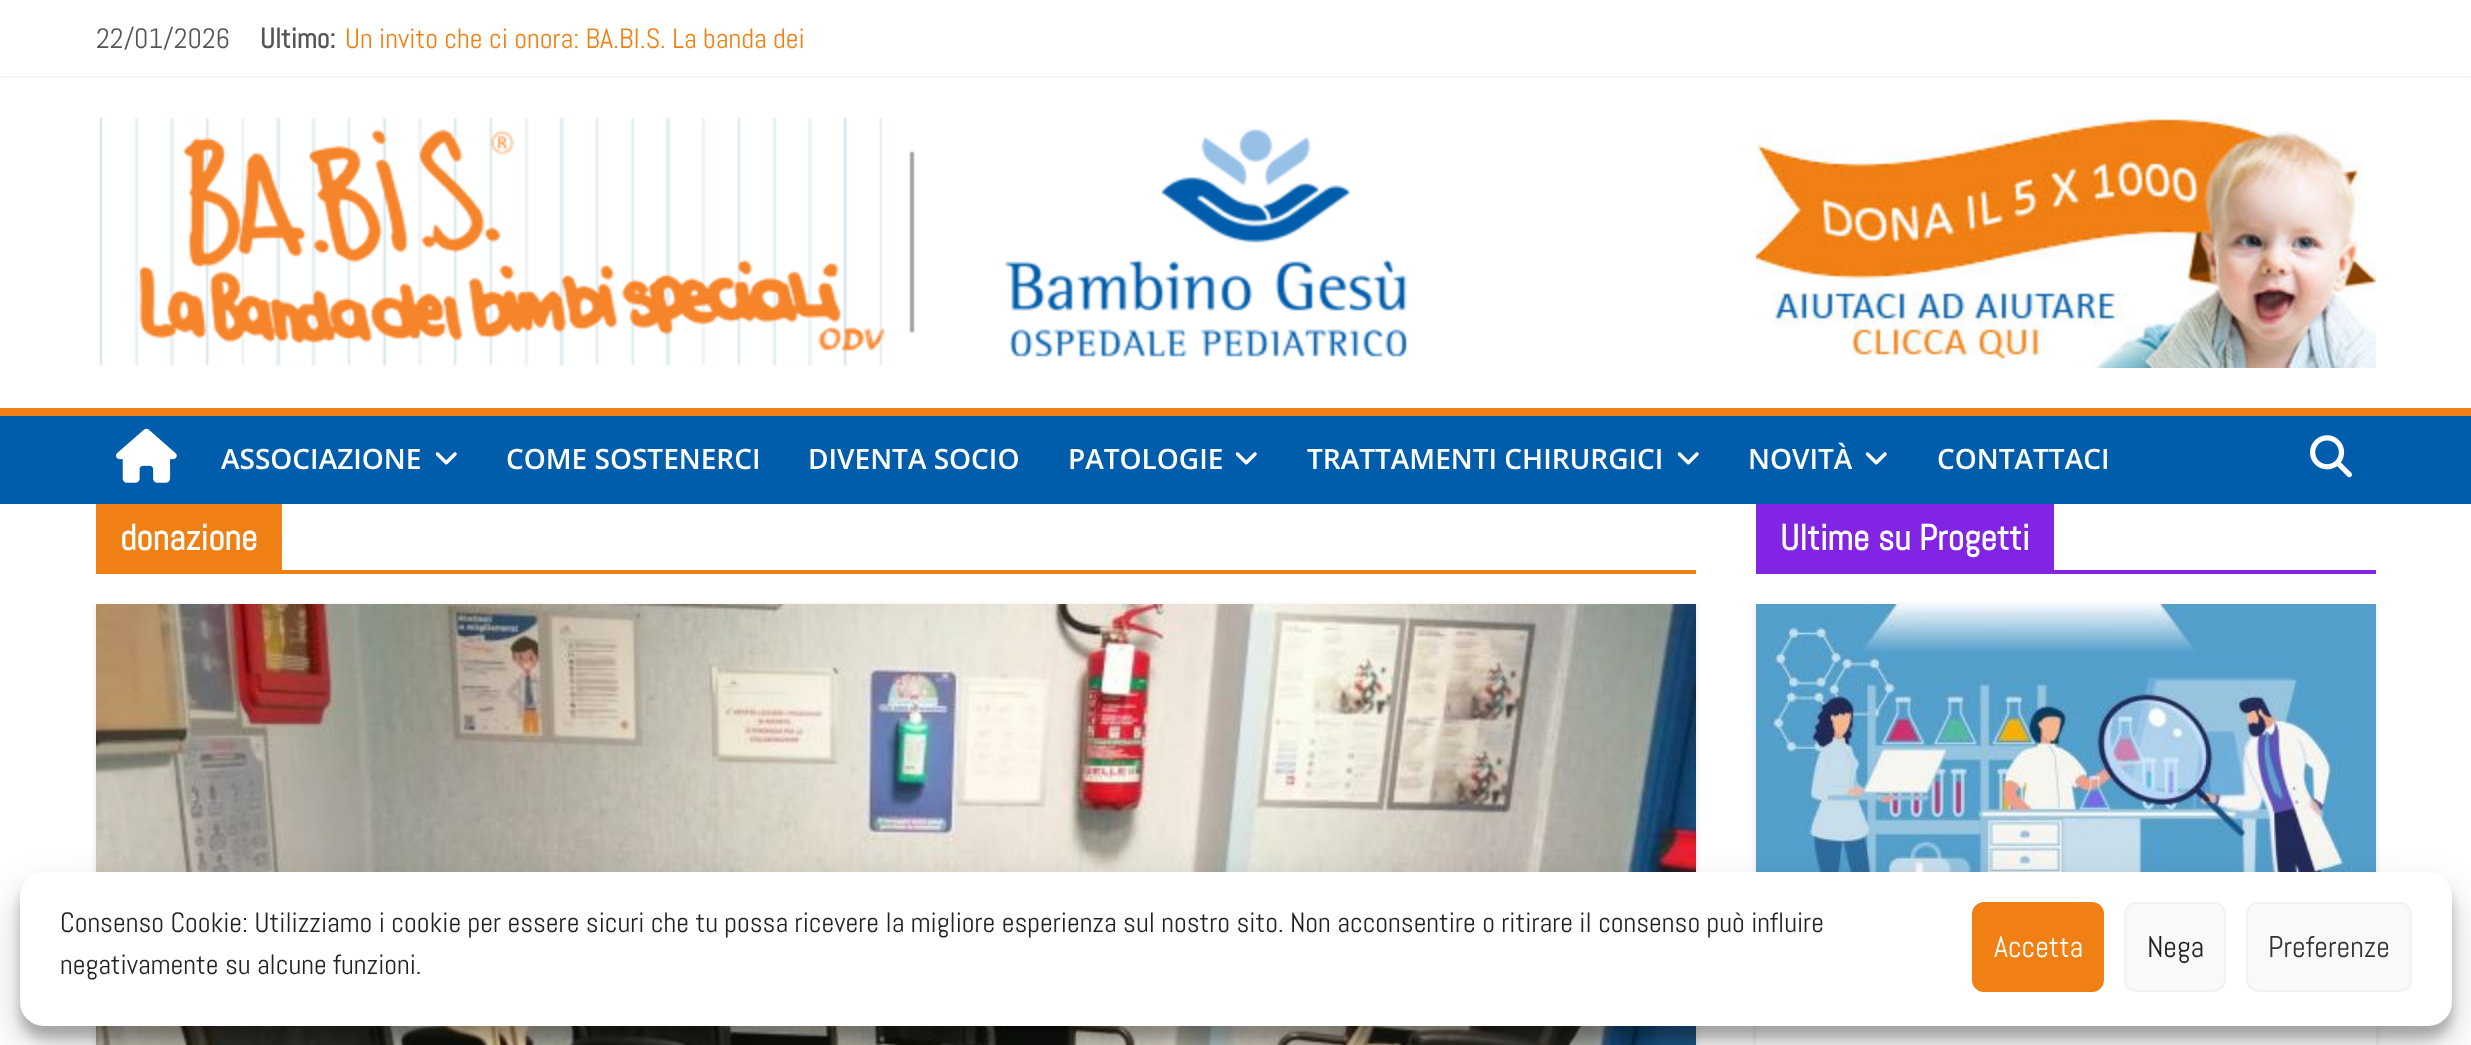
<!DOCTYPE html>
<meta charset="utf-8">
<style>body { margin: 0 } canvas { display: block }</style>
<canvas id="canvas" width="2471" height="1045"></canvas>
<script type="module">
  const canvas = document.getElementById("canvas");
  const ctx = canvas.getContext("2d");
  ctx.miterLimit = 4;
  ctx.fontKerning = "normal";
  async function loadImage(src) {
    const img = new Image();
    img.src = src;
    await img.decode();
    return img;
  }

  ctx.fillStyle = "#ffffff";
  ctx.fillRect(0, 0, 2471, 1045);
  ctx.save();
  ctx.beginPath();
  ctx.rect(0, 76, 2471, 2);
  ctx.clip();
  ctx.fillStyle = "rgba(0, 0, 0, 0.1)";
  ctx.filter = "blur(2px)";
  ctx.beginPath();
  ctx.rect(0, 0, 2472, 76);
  ctx.fill();
  ctx.filter = "none";
  ctx.restore();
  ctx.font = "28px Abel";
  ctx.fillStyle = "#555555";
  ctx.fillText("22/01/2026", 96, 48);
  ctx.font = "bold 28px Abel";
  ctx.fillText("Ultimo:", 260, 48);
  ctx.font = "28px Abel";
  ctx.fillStyle = "#f08013";
  ctx.fillText("Un invito che ci onora: BA.BI.S. La banda dei", 345, 48);
  ctx.drawImage(await loadImage("img1.png"), 99, 117, 1308, 250);
  ctx.drawImage(await loadImage("img2.png"), 1756, 116, 620, 252);
  ctx.fillStyle = "#005dab";
  ctx.fillRect(0, 416, 2471, 88);
  ctx.fillStyle = "#f08013";
  ctx.fillRect(0, 408, 2471, 8);
  ctx.drawImage(await loadImage("img3.png"), 116, 428, 61, 55);
  ctx.font = "600 28px Open Sans";
  ctx.fillStyle = "#ffffff";
  ctx.fillText("ASSOCIAZIONE", 221, 469);
  ctx.drawImage(await loadImage("img4.png"), 435, 452, 22, 13);
  ctx.fillText("COME SOSTENERCI", 506, 469);
  ctx.fillText("DIVENTA SOCIO", 808, 469);
  ctx.fillText("PATOLOGIE", 1068, 469);
  ctx.drawImage(await loadImage("img4.png"), 1235, 452, 22, 13);
  ctx.fillText("TRATTAMENTI CHIRURGICI", 1307, 469);
  ctx.drawImage(await loadImage("img4.png"), 1677, 452, 22, 13);
  ctx.fillText("NOVITÀ", 1748, 469);
  ctx.drawImage(await loadImage("img4.png"), 1865, 452, 22, 13);
  ctx.fillText("CONTATTACI", 1937, 469);
  ctx.drawImage(await loadImage("img5.png"), 2310, 435, 42, 43);
  ctx.fillStyle = "#f08013";
  ctx.fillRect(96, 570, 1600, 4);
  ctx.fillRect(96, 504, 186, 66);
  ctx.font = "bold 36px Abel";
  ctx.fillStyle = "#ffffff";
  ctx.fillText("donazione", 120, 550);
  ctx.fillStyle = "rgba(0, 0, 0, 0.1)";
  ctx.filter = "blur(3px)";
  ctx.beginPath();
  ctx.rect(96, 606, 1600, 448);
  ctx.fill();
  ctx.filter = "none";
  ctx.drawImage(await loadImage("img6.png"), 96, 604, 1600, 441);
  ctx.fillStyle = "#8224e3";
  ctx.fillRect(1756, 570, 620, 4);
  ctx.fillRect(1756, 504, 298, 66);
  ctx.fillStyle = "#ffffff";
  ctx.fillText("Ultime su Progetti", 1780, 550);
  ctx.save();
  ctx.beginPath();
  ctx.moveTo(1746, 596);
  ctx.lineTo(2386, 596);
  ctx.lineTo(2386, 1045);
  ctx.lineTo(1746, 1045);
  ctx.closePath();
  ctx.moveTo(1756, 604);
  ctx.lineTo(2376, 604);
  ctx.lineTo(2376, 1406);
  ctx.lineTo(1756, 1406);
  ctx.closePath();
  ctx.clip("evenodd");
  ctx.fillStyle = "rgba(0, 0, 0, 0.1)";
  ctx.filter = "blur(3px)";
  ctx.beginPath();
  ctx.rect(1756, 606, 620, 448);
  ctx.fill();
  ctx.filter = "none";
  ctx.restore();
  ctx.drawImage(await loadImage("img7.png"), 1756, 604, 620, 268);
  ctx.fillStyle = "rgba(0, 0, 0, 0.23)";
  ctx.filter = "blur(6px)";
  ctx.beginPath();
  ctx.roundRect(20, 884, 2432, 154, 24);
  ctx.fill();
  ctx.filter = "none";
  ctx.fillStyle = "rgba(0, 0, 0, 0.19)";
  ctx.filter = "blur(20px)";
  ctx.beginPath();
  ctx.roundRect(20, 892, 2432, 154, 24);
  ctx.fill();
  ctx.filter = "none";
  ctx.fillStyle = "#ffffff";
  ctx.beginPath();
  ctx.roundRect(20, 872, 2432, 154, 24);
  ctx.fill();
  ctx.font = "28px Abel";
  ctx.fillStyle = "#222222";
  ctx.fillText("Consenso Cookie: Utilizziamo i cookie per essere sicuri che tu possa ricevere la migliore esperienza sul nostro sito. Non acconsentire o ritirare il consenso può influire", 60, 932);
  ctx.fillText("negativamente su alcune funzioni.", 60, 974);
  ctx.fillStyle = "#f08013";
  ctx.beginPath();
  ctx.roundRect(1973, 903, 130, 88, 11);
  ctx.fill();
  ctx.strokeStyle = "#f08013";
  ctx.lineWidth = 2;
  ctx.stroke();
  ctx.font = "30px Abel";
  ctx.fillStyle = "#ffffff";
  ctx.fillText("Accetta", 1994, 957);
  ctx.fillStyle = "#f9f9f9";
  ctx.beginPath();
  ctx.roundRect(2125, 903, 100, 88, 11);
  ctx.fill();
  ctx.strokeStyle = "#f2f2f2";
  ctx.stroke();
  ctx.fillStyle = "#222222";
  ctx.fillText("Nega", 2147, 957);
  ctx.fillStyle = "#f9f9f9";
  ctx.beginPath();
  ctx.roundRect(2247, 903, 164, 88, 11);
  ctx.fill();
  ctx.stroke();
  ctx.fillStyle = "#333333";
  ctx.fillText("Preferenze", 2268, 957);
</script>
